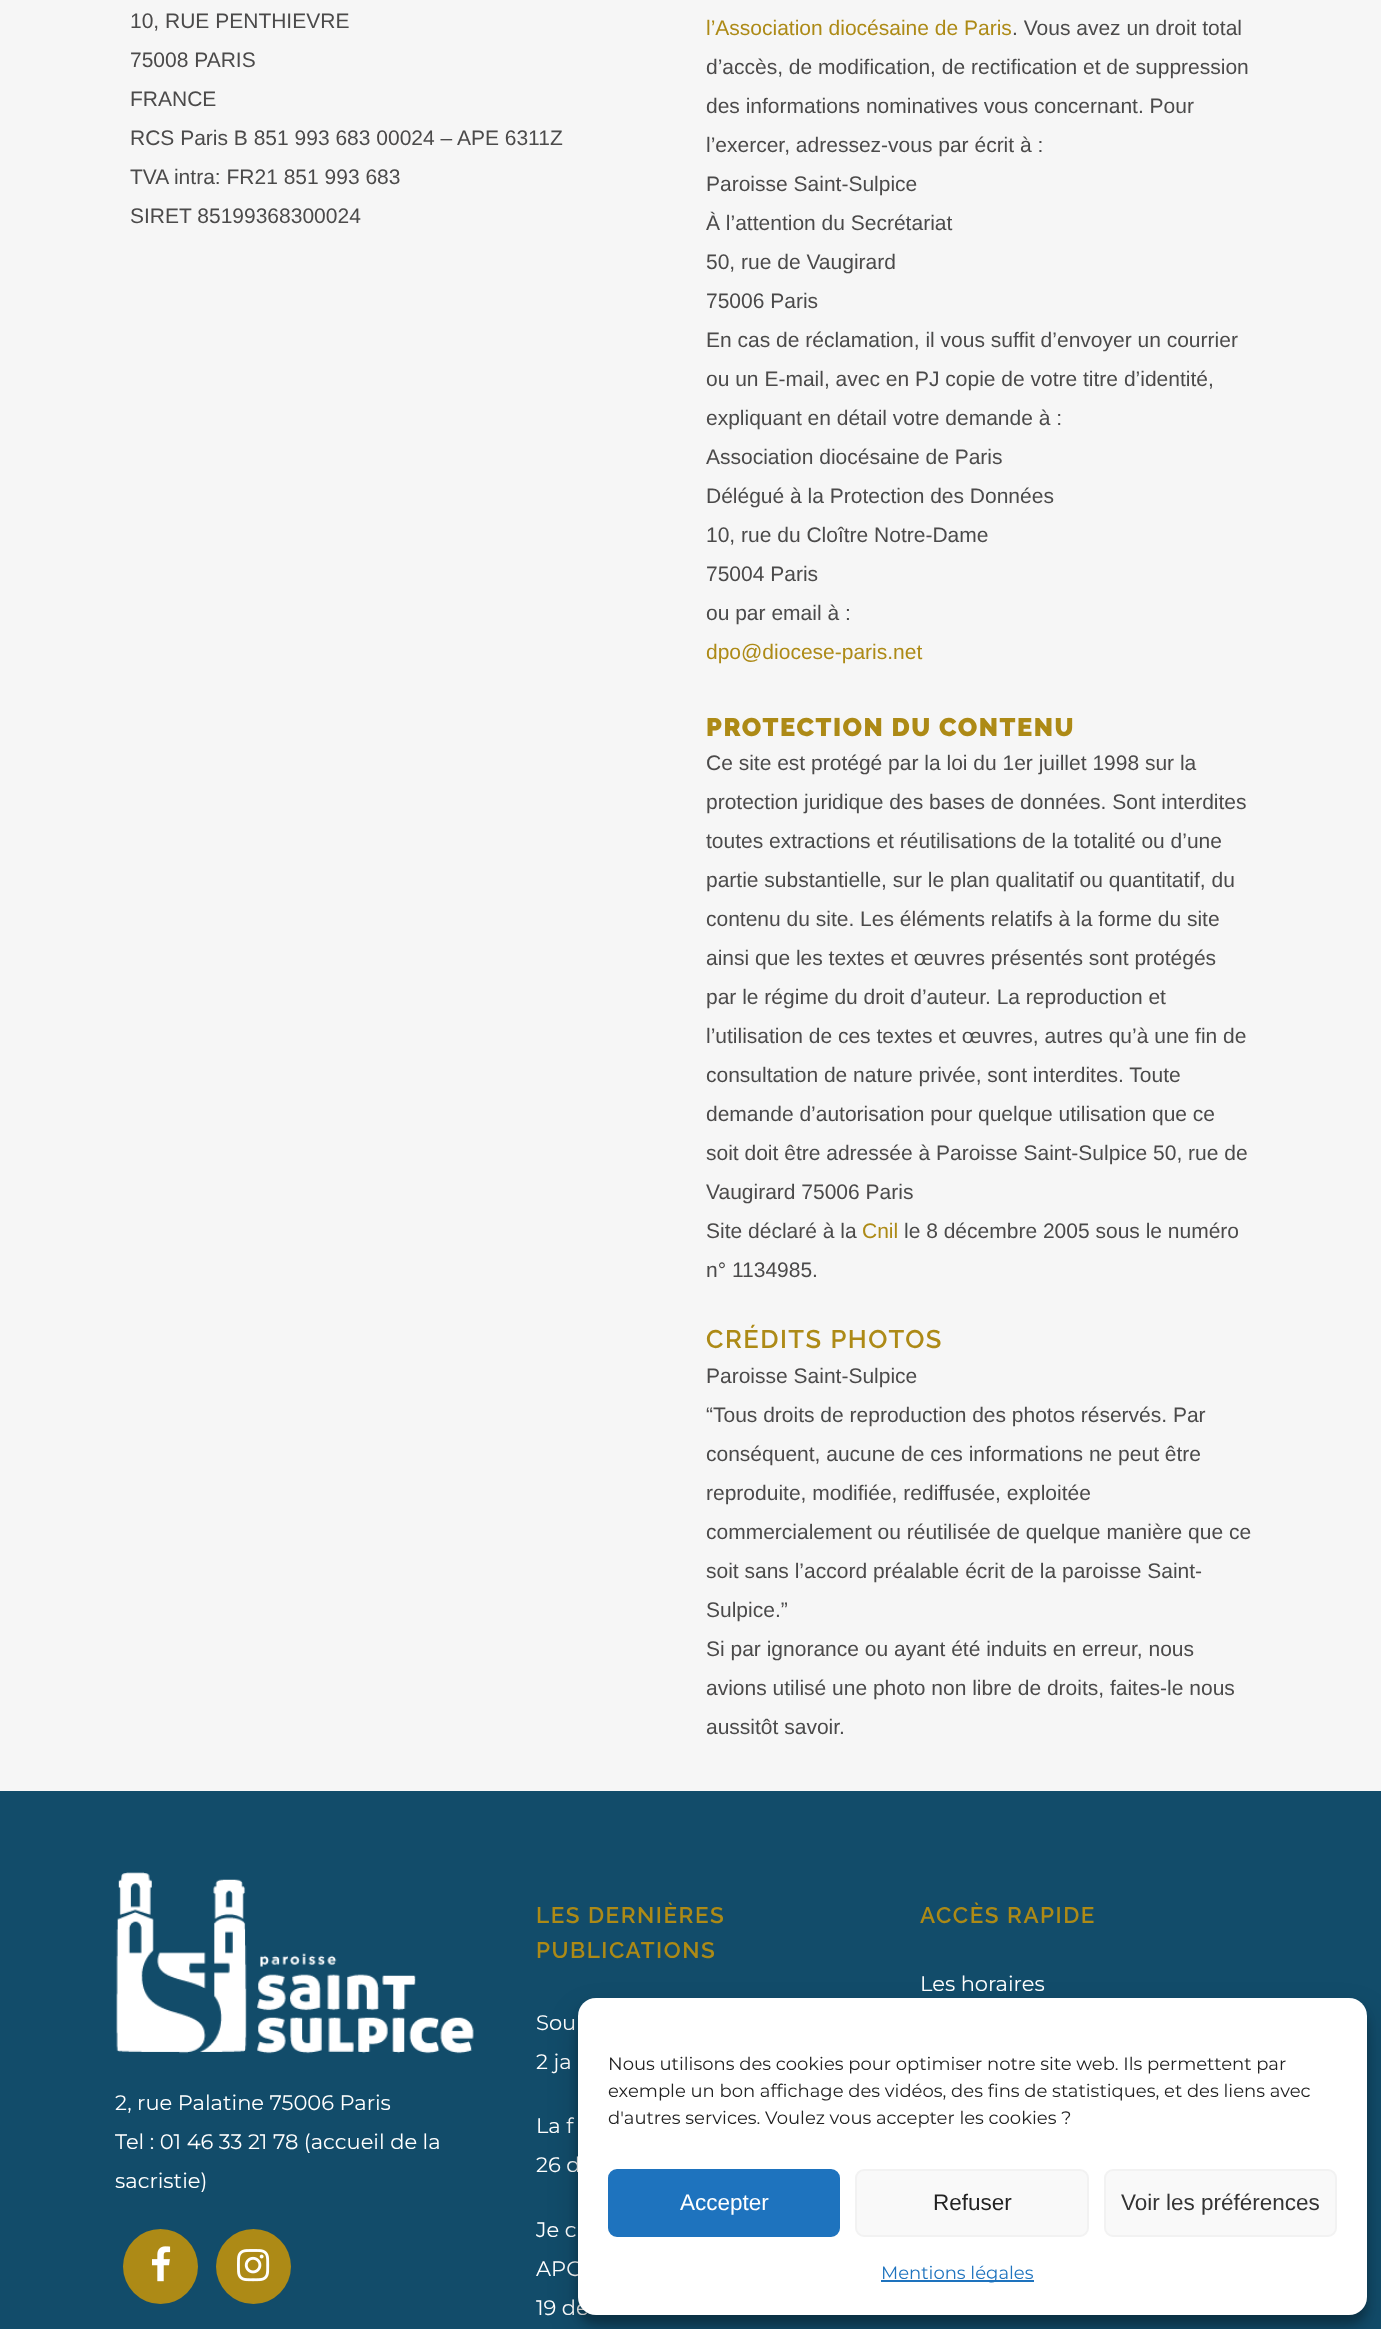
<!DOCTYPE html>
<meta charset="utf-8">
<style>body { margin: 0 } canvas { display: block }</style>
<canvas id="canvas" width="1381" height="2329"></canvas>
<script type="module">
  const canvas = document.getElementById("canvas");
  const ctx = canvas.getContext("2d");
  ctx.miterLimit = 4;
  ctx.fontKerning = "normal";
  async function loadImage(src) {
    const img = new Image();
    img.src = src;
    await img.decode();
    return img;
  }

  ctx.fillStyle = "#f6f6f6";
  ctx.fillRect(0, 0, 1381, 2329);
  ctx.font = "21px Liberation Sans";
  ctx.fillStyle = "#4b4a4a";
  ctx.fillText("10, RUE PENTHIEVRE", 130, 28);
  ctx.fillText("75008 PARIS", 130, 67);
  ctx.fillText("FRANCE", 130, 106);
  ctx.fillText("RCS Paris B 851 993 683 00024 – APE 6311Z", 130, 145);
  ctx.fillText("TVA intra: FR21 851 993 683", 130, 184);
  ctx.fillText("SIRET 85199368300024", 130, 223);
  ctx.fillStyle = "#ad8a16";
  ctx.fillText("l’Association diocésaine de Paris", 706, 35);
  ctx.fillStyle = "#4b4a4a";
  ctx.fillText(". Vous avez un droit total", 1012, 35);
  ctx.fillText("d’accès, de modification, de rectification et de suppression", 706, 74);
  ctx.fillText("des informations nominatives vous concernant. Pour", 706, 113);
  ctx.fillText("l’exercer, adressez-vous par écrit à :", 706, 152);
  ctx.fillText("Paroisse Saint-Sulpice", 706, 191);
  ctx.fillText("À l’attention du Secrétariat", 706, 230);
  ctx.fillText("50, rue de Vaugirard", 706, 269);
  ctx.fillText("75006 Paris", 706, 308);
  ctx.fillText("En cas de réclamation, il vous suffit d’envoyer un courrier", 706, 347);
  ctx.fillText("ou un E-mail, avec en PJ copie de votre titre d’identité,", 706, 386);
  ctx.fillText("expliquant en détail votre demande à :", 706, 425);
  ctx.fillText("Association diocésaine de Paris", 706, 464);
  ctx.fillText("Délégué à la Protection des Données", 706, 503);
  ctx.fillText("10, rue du Cloître Notre-Dame", 706, 542);
  ctx.fillText("75004 Paris", 706, 581);
  ctx.fillText("ou par email à :", 706, 620);
  ctx.fillStyle = "#ad8a16";
  ctx.fillText("dpo@diocese-paris.net", 706, 659);
  ctx.letterSpacing = "1.5px";
  ctx.font = "900 25.5px Raleway";
  ctx.fillText("PROTECTION DU CONTENU", 706, 736);
  ctx.letterSpacing = "0px";
  ctx.font = "21px Liberation Sans";
  ctx.fillStyle = "#4b4a4a";
  ctx.fillText("Ce site est protégé par la loi du 1er juillet 1998 sur la", 706, 770);
  ctx.fillText("protection juridique des bases de données. Sont interdites", 706, 809);
  ctx.fillText("toutes extractions et réutilisations de la totalité ou d’une", 706, 848);
  ctx.fillText("partie substantielle, sur le plan qualitatif ou quantitatif, du", 706, 887);
  ctx.fillText("contenu du site. Les éléments relatifs à la forme du site", 706, 926);
  ctx.fillText("ainsi que les textes et œuvres présentés sont protégés", 706, 965);
  ctx.fillText("par le régime du droit d’auteur. La reproduction et", 706, 1004);
  ctx.fillText("l’utilisation de ces textes et œuvres, autres qu’à une fin de", 706, 1043);
  ctx.fillText("consultation de nature privée, sont interdites. Toute", 706, 1082);
  ctx.fillText("demande d’autorisation pour quelque utilisation que ce", 706, 1121);
  ctx.fillText("soit doit être adressée à Paroisse Saint-Sulpice 50, rue de", 706, 1160);
  ctx.fillText("Vaugirard 75006 Paris", 706, 1199);
  ctx.fillText("Site déclaré à la", 706, 1238);
  ctx.fillStyle = "#ad8a16";
  ctx.fillText("Cnil", 862, 1238);
  ctx.fillStyle = "#4b4a4a";
  ctx.fillText("le 8 décembre 2005 sous le numéro", 904, 1238);
  ctx.fillText("n° 1134985.", 706, 1277);
  ctx.letterSpacing = "1.5px";
  ctx.font = "600 25.5px Raleway";
  ctx.fillStyle = "#ad8a16";
  ctx.fillText("CRÉDITS PHOTOS", 706, 1348);
  ctx.letterSpacing = "0px";
  ctx.font = "21px Liberation Sans";
  ctx.fillStyle = "#4b4a4a";
  ctx.fillText("Paroisse Saint-Sulpice", 706, 1383);
  ctx.fillText("“Tous droits de reproduction des photos réservés. Par", 706, 1422);
  ctx.fillText("conséquent, aucune de ces informations ne peut être", 706, 1461);
  ctx.fillText("reproduite, modifiée, rediffusée, exploitée", 706, 1500);
  ctx.fillText("commercialement ou réutilisée de quelque manière que ce", 706, 1539);
  ctx.fillText("soit sans l’accord préalable écrit de la paroisse Saint-", 706, 1578);
  ctx.fillText("Sulpice.”", 706, 1617);
  ctx.fillText("Si par ignorance ou ayant été induits en erreur, nous", 706, 1656);
  ctx.fillText("avions utilisé une photo non libre de droits, faites-le nous", 706, 1695);
  ctx.fillText("aussitôt savoir.", 706, 1734);
  ctx.fillStyle = "#124c6a";
  ctx.fillRect(0, 1791, 1381, 538);
  ctx.letterSpacing = "1.5px";
  ctx.font = "600 22.5px Raleway";
  ctx.fillStyle = "#ad8a16";
  ctx.fillText("LES DERNIÈRES", 536, 1923);
  ctx.fillText("PUBLICATIONS", 536, 1958);
  ctx.letterSpacing = "0px";
  ctx.font = "21px Montserrat";
  ctx.fillStyle = "#ffffff";
  ctx.fillText("Sou", 536, 2030);
  ctx.fillText("2 ja", 536, 2069);
  ctx.fillText("La f", 536, 2133);
  ctx.fillText("26 d", 536, 2172);
  ctx.fillText("Je c", 536, 2237);
  ctx.fillText("APO", 536, 2276);
  ctx.fillText("19 dé", 536, 2315);
  ctx.letterSpacing = "1.5px";
  ctx.font = "600 22.5px Raleway";
  ctx.fillStyle = "#ad8a16";
  ctx.fillText("ACCÈS RAPIDE", 920, 1923);
  ctx.letterSpacing = "0px";
  ctx.font = "21px Montserrat";
  ctx.fillStyle = "#ffffff";
  ctx.fillText("Les horaires", 920, 1991);
  ctx.drawImage(await loadImage("img1.png"), 116, 1872, 358, 182);
  ctx.fillText("2, rue Palatine 75006 Paris", 115, 2110);
  ctx.fillText("Tel : 01 46 33 21 78 (accueil de la", 115, 2149);
  ctx.fillText("sacristie)", 115, 2188);
  ctx.fillStyle = "#ad8a16";
  ctx.beginPath();
  ctx.arc(160.5, 2266.5, 37.5, 0, Math.PI * 2);
  ctx.fill();
  ctx.drawImage(await loadImage("img2.png"), 152, 2246, 19, 36);
  ctx.beginPath();
  ctx.arc(253.5, 2266.5, 37.5, 0, Math.PI * 2);
  ctx.fill();
  ctx.drawImage(await loadImage("img3.png"), 237, 2249, 33, 33);
  ctx.fillStyle = "rgba(0, 0, 0, 0.23)";
  ctx.filter = "blur(4.5px)";
  ctx.beginPath();
  ctx.roundRect(578, 2007, 789, 317, 18);
  ctx.fill();
  ctx.filter = "none";
  ctx.fillStyle = "rgba(0, 0, 0, 0.19)";
  ctx.filter = "blur(15px)";
  ctx.beginPath();
  ctx.roundRect(578, 2013, 789, 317, 18);
  ctx.fill();
  ctx.filter = "none";
  ctx.fillStyle = "#ffffff";
  ctx.beginPath();
  ctx.roundRect(578, 1998, 789, 317, 18);
  ctx.fill();
  ctx.font = "18px Montserrat";
  ctx.fillStyle = "#222222";
  ctx.fillText("Nous utilisons des cookies pour optimiser notre site web. Ils permettent par", 608, 2070);
  ctx.fillText("exemple un bon affichage des vidéos, des fins de statistiques, et des liens avec", 608, 2097);
  ctx.fillText("d'autres services. Voulez vous accepter les cookies ?", 608, 2124);
  ctx.fillStyle = "#1e73be";
  ctx.beginPath();
  ctx.roundRect(609, 2170, 230, 66, 8);
  ctx.fill();
  ctx.strokeStyle = "#1e73be";
  ctx.lineWidth = 2;
  ctx.stroke();
  ctx.font = "22.5px Liberation Sans";
  ctx.fillStyle = "#ffffff";
  ctx.fillText("Accepter", 680, 2210);
  ctx.fillStyle = "#f9f9f9";
  ctx.beginPath();
  ctx.roundRect(856, 2170, 232, 66, 8);
  ctx.fill();
  ctx.strokeStyle = "#f2f2f2";
  ctx.stroke();
  ctx.fillStyle = "#222222";
  ctx.fillText("Refuser", 933, 2210);
  ctx.fillStyle = "#f9f9f9";
  ctx.beginPath();
  ctx.roundRect(1105, 2170, 231, 66, 8);
  ctx.fill();
  ctx.stroke();
  ctx.fillStyle = "#333333";
  ctx.fillText("Voir les préférences", 1121, 2210);
  ctx.fillStyle = "#1e73be";
  ctx.fillRect(881, 2280, 153, 2);
  ctx.font = "18px Montserrat";
  ctx.fillText("Mentions légales", 881, 2279);
</script>
